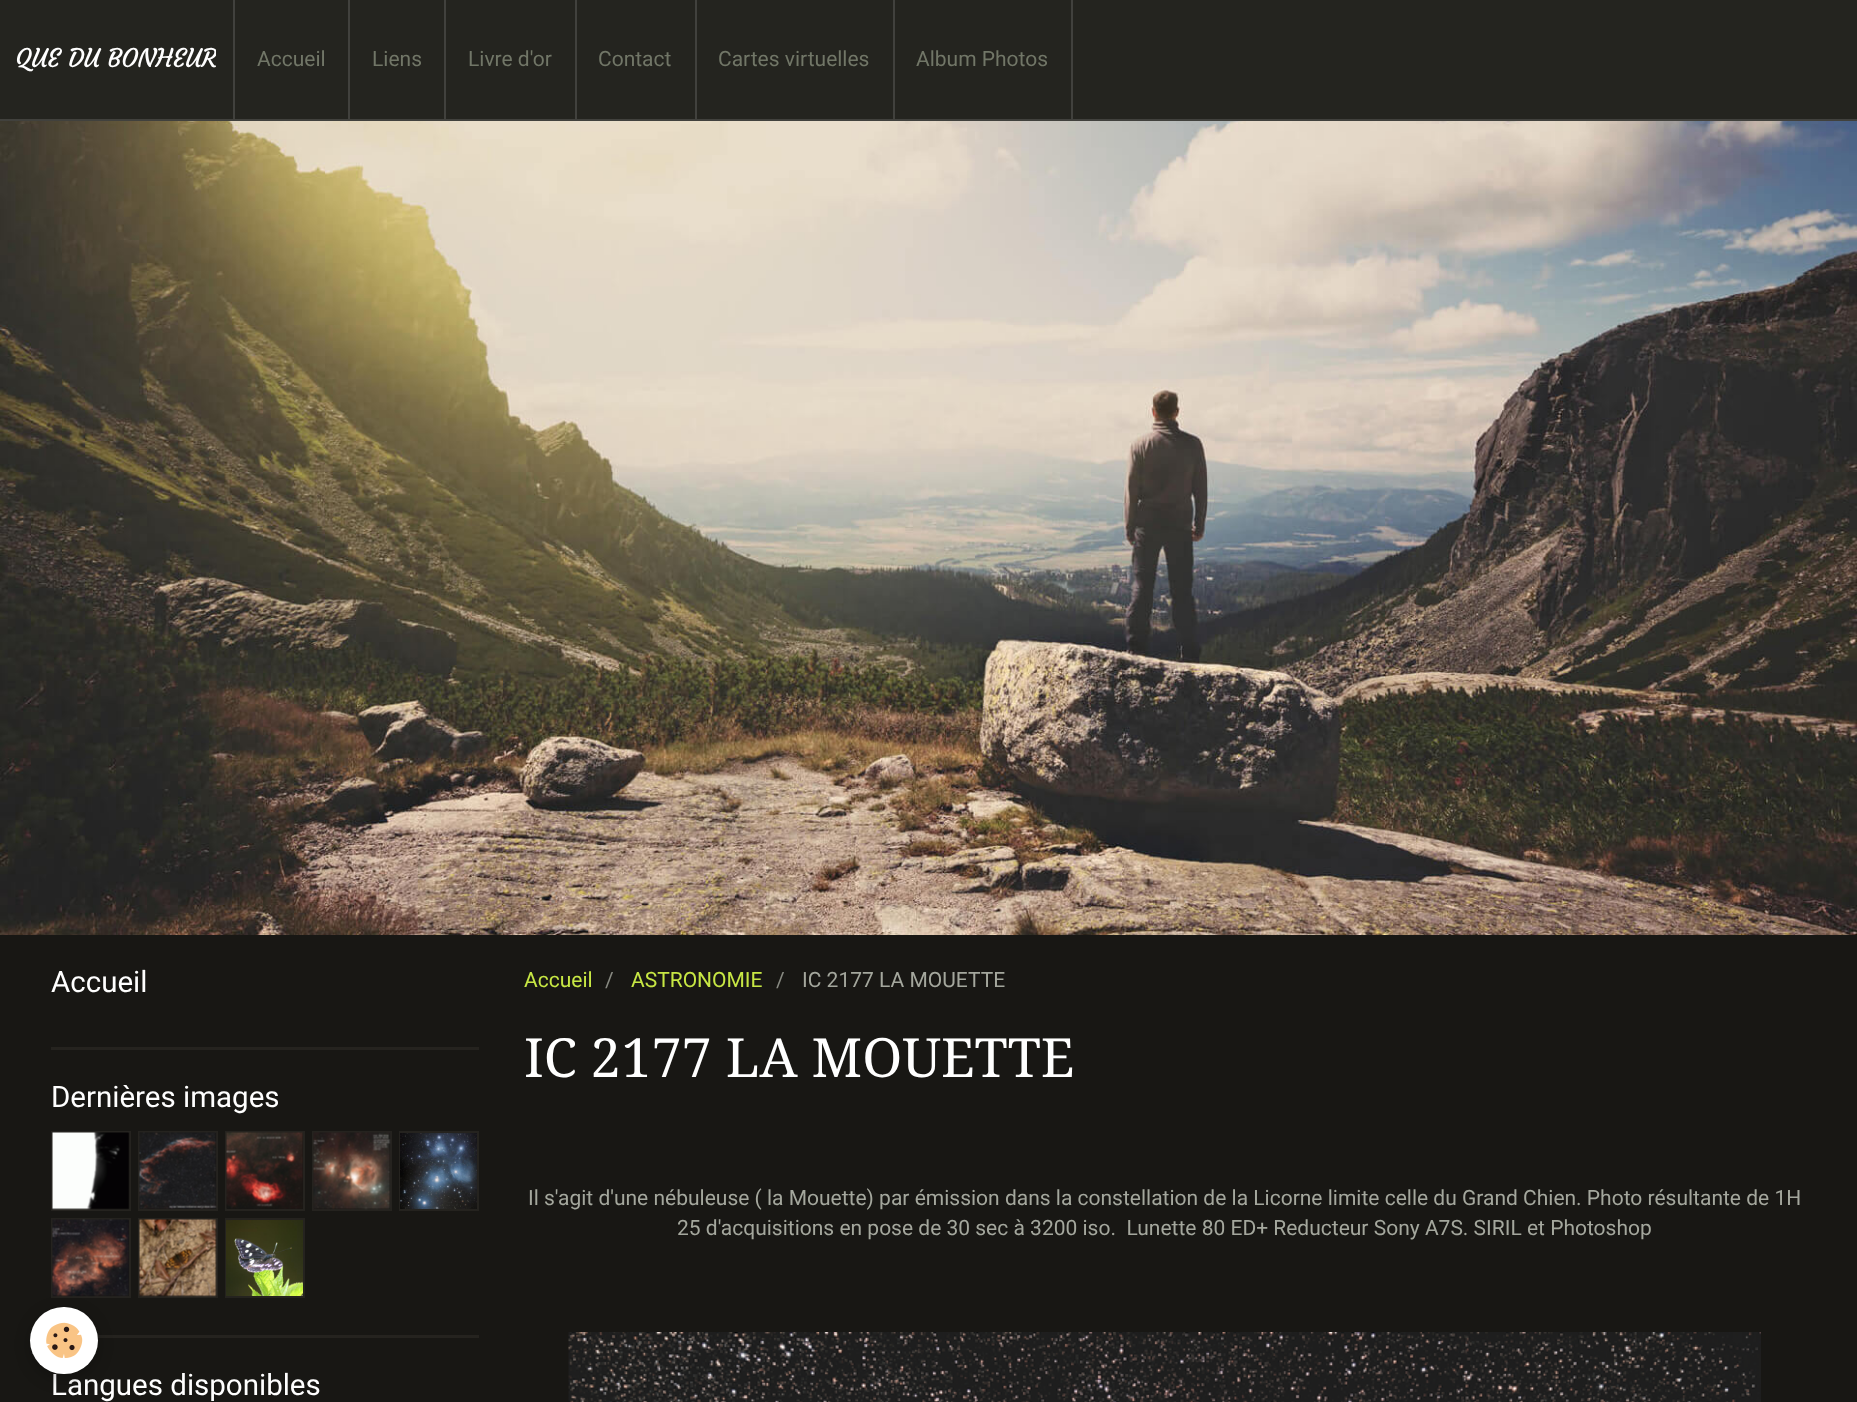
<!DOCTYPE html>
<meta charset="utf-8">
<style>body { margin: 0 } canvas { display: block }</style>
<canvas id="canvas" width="1857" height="1402"></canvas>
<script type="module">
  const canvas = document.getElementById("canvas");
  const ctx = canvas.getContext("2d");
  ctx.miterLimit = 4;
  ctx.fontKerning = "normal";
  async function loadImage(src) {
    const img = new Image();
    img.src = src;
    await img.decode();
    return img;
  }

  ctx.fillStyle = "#181714";
  ctx.fillRect(0, 0, 1857, 1402);
  ctx.fillStyle = "#24241f";
  ctx.fillRect(0, 0, 1857, 119);
  ctx.fillStyle = "#41413d";
  ctx.fillRect(0, 119, 1857, 2);
  ctx.save();
  ctx.beginPath();
  ctx.rect(15, 42, 201, 35);
  ctx.clip();
  ctx.font = "25.25px Courgette";
  ctx.fillStyle = "#ffffff";
  ctx.fillText("QUE DU BONHEUR", 15, 67);
  ctx.restore();
  ctx.fillRect(348, 0, 2, 119);
  ctx.fillRect(233, 0, 2, 119);
  ctx.font = "21px Roboto";
  ctx.fillStyle = "#717667";
  ctx.fillText("Accueil", 257, 66);
  ctx.fillStyle = "#41413d";
  ctx.fillRect(444, 0, 2, 119);
  ctx.fillStyle = "#717667";
  ctx.fillText("Liens", 372, 66);
  ctx.fillStyle = "#41413d";
  ctx.fillRect(575, 0, 2, 119);
  ctx.fillStyle = "#717667";
  ctx.fillText("Livre d'or", 468, 66);
  ctx.fillStyle = "#41413d";
  ctx.fillRect(695, 0, 2, 119);
  ctx.fillStyle = "#717667";
  ctx.fillText("Contact", 598, 66);
  ctx.fillStyle = "#41413d";
  ctx.fillRect(893, 0, 2, 119);
  ctx.fillStyle = "#717667";
  ctx.fillText("Cartes virtuelles", 718, 66);
  ctx.fillStyle = "#41413d";
  ctx.fillRect(1071, 0, 2, 119);
  ctx.fillStyle = "#717667";
  ctx.fillText("Album Photos", 916, 66);
  ctx.drawImage(await loadImage("img1.png"), 0, 121, 1857, 814);
  ctx.fillStyle = "#25231f";
  ctx.fillRect(51, 1047, 428, 3);
  ctx.font = "29.5px Roboto";
  ctx.fillStyle = "#ffffff";
  ctx.fillText("Accueil", 51, 992);
  ctx.fillStyle = "#25231f";
  ctx.fillRect(97, 1335, 382, 3);
  ctx.fillStyle = "#ffffff";
  ctx.fillText("Dernières images", 51, 1107);
  ctx.strokeStyle = "#25231f";
  ctx.lineWidth = 2;
  ctx.strokeRect(52, 1132, 78, 78);
  ctx.drawImage(await loadImage("img2.png"), 52, 1132, 78, 78);
  ctx.strokeRect(139, 1132, 78, 78);
  ctx.drawImage(await loadImage("img3.png"), 139, 1132, 78, 77);
  ctx.strokeRect(226, 1132, 78, 78);
  ctx.drawImage(await loadImage("img4.png"), 226, 1132, 77, 77);
  ctx.strokeRect(313, 1132, 78, 78);
  ctx.drawImage(await loadImage("img5.png"), 313, 1132, 78, 78);
  ctx.strokeRect(400, 1132, 78, 78);
  ctx.drawImage(await loadImage("img6.png"), 400, 1133, 77, 76);
  ctx.strokeRect(52, 1219, 78, 78);
  ctx.drawImage(await loadImage("img7.png"), 52, 1219, 77, 78);
  ctx.strokeRect(139, 1219, 78, 78);
  ctx.drawImage(await loadImage("img8.png"), 139, 1219, 78, 78);
  ctx.strokeRect(226, 1219, 78, 78);
  ctx.drawImage(await loadImage("img9.png"), 226, 1220, 77, 76);
  ctx.fillText("Langues disponibles", 51, 1395);
  ctx.font = "21px Roboto";
  ctx.fillStyle = "#c7e744";
  ctx.fillText("Accueil", 524, 987);
  ctx.fillStyle = "#888a82";
  ctx.fillText("/", 605, 987);
  ctx.fillStyle = "#c7e744";
  ctx.fillText("ASTRONOMIE", 631, 987);
  ctx.fillStyle = "#888a82";
  ctx.fillText("/", 776, 987);
  ctx.fillStyle = "#a4a79d";
  ctx.fillText("IC 2177 LA MOUETTE", 802, 987);
  ctx.font = "54px Droid Serif";
  ctx.fillStyle = "#ffffff";
  ctx.fillText("IC 2177 LA MOUETTE", 524, 1077);
  ctx.font = "21px Roboto";
  ctx.fillStyle = "#a4a79d";
  ctx.fillText("Il s'agit d'une nébuleuse ( la Mouette) par émission dans la constellation de la Licorne limite celle du Grand Chien. Photo résultante de 1H", 528, 1205);
  ctx.fillText("25 d'acquisitions en pose de 30 sec à 3200 iso.  Lunette 80 ED+ Reducteur Sony A7S. SIRIL et Photoshop", 677, 1235);
  ctx.drawImage(await loadImage("img10.png"), 568, 1332, 1193, 70);
  ctx.fillStyle = "rgba(0, 0, 0, 0.24)";
  ctx.filter = "blur(7.5px)";
  ctx.beginPath();
  ctx.roundRect(30, 1311, 68, 68, 34);
  ctx.fill();
  ctx.filter = "none";
  ctx.fillStyle = "#ffffff";
  ctx.beginPath();
  ctx.roundRect(30, 1307, 68, 67, 33.5);
  ctx.fill();
  ctx.drawImage(await loadImage("img11.png"), 46, 1322, 37, 36);
</script>
